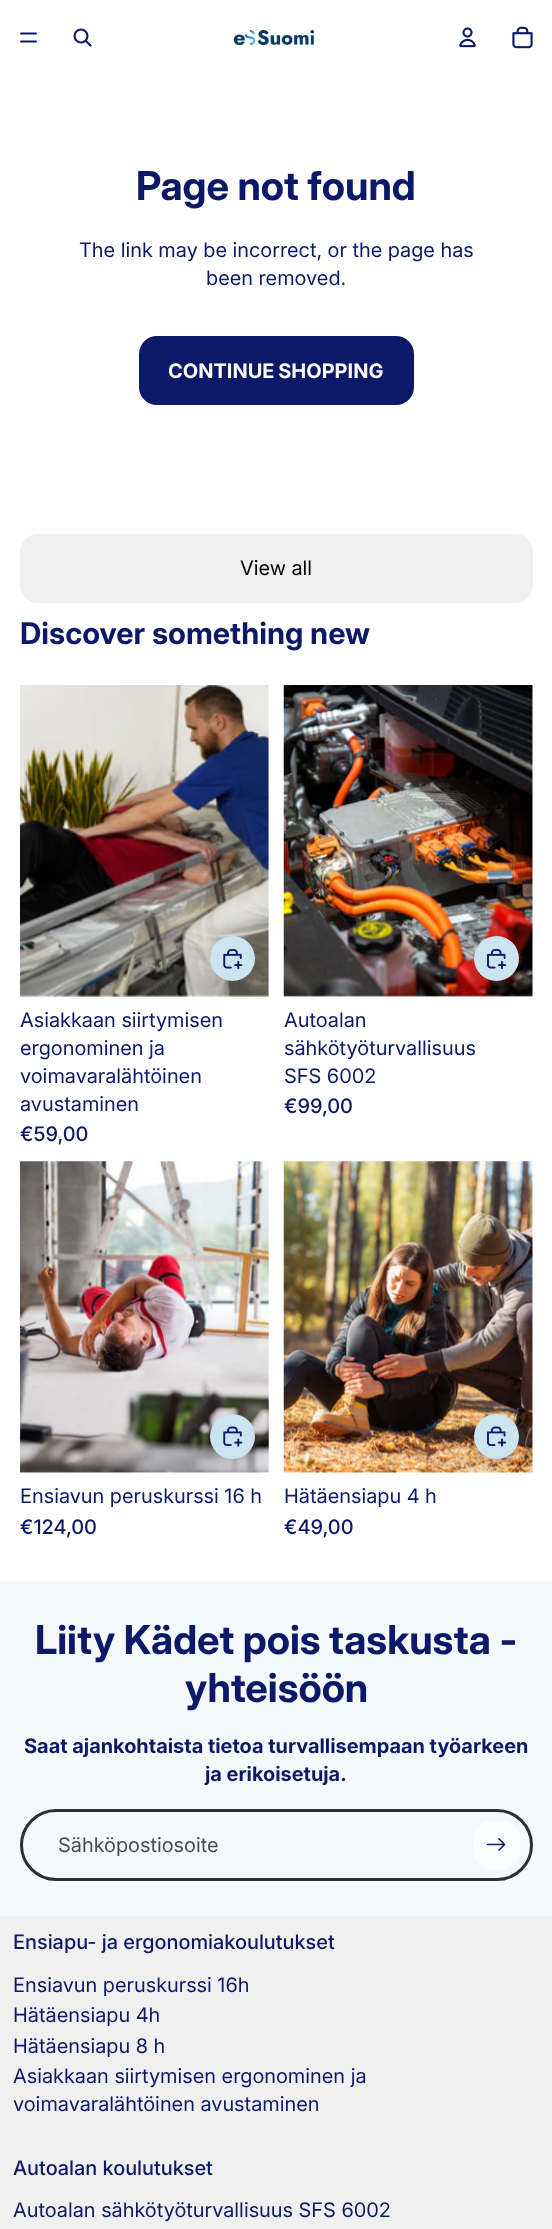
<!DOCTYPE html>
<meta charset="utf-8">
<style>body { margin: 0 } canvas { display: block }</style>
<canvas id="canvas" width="552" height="2229"></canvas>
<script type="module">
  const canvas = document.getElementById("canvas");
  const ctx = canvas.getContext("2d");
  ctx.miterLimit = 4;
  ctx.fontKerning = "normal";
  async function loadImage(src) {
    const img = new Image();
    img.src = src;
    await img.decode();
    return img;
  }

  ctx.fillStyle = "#ffffff";
  ctx.fillRect(0, 0, 552, 2229);
  ctx.beginPath();
  ctx.moveTo(21, 33.5);
  ctx.lineTo(36, 33.5);
  ctx.moveTo(21, 41.5);
  ctx.lineTo(36, 41.5);
  ctx.strokeStyle = "#0b1968";
  ctx.lineWidth = 1.8;
  ctx.lineCap = "round";
  ctx.stroke();
  ctx.beginPath();
  ctx.arc(81, 36, 6.5, 0, Math.PI * 2);
  ctx.lineWidth = 2.1;
  ctx.stroke();
  ctx.beginPath();
  ctx.moveTo(86, 41);
  ctx.lineTo(90.5, 45.5);
  ctx.lineJoin = "round";
  ctx.stroke();
  ctx.drawImage(await loadImage("img1.png"), 233, 30, 82, 15);
  ctx.drawImage(await loadImage("img2.png"), 459, 27, 17, 21);
  ctx.drawImage(await loadImage("img3.png"), 512, 26, 21, 23);
  ctx.font = "bold 40px Inter";
  ctx.fillStyle = "#0b1968";
  ctx.fillText("Page not found", 136, 200);
  ctx.font = "20px Inter";
  ctx.fillText("The link may be incorrect, or the page has", 79, 257);
  ctx.fillText("been removed.", 206, 285);
  ctx.beginPath();
  ctx.roundRect(139, 336, 275, 69, 18);
  ctx.fill();
  ctx.wordSpacing = "-1px";
  ctx.font = "bold 20px 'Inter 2'";
  ctx.fillStyle = "#ffffff";
  ctx.fillText("CONTINUE SHOPPING", 168, 378);
  ctx.fillStyle = "#f0f0f0";
  ctx.beginPath();
  ctx.roundRect(20, 534, 513, 69, 18);
  ctx.fill();
  ctx.wordSpacing = "0px";
  ctx.font = "20px Inter";
  ctx.fillStyle = "#000000";
  ctx.fillText("View all", 240, 575);
  ctx.font = "bold 30px 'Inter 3'";
  ctx.fillStyle = "#0b1968";
  ctx.fillText("Discover something new", 20, 644);
  ctx.drawImage(await loadImage("img4.png"), 20, 685, 249, 312);
  ctx.save();
  ctx.beginPath();
  ctx.rect(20, 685, 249, 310);
  ctx.clip();
  ctx.fillStyle = "rgba(0, 0, 0, 0.15)";
  ctx.filter = "blur(12.5px)";
  ctx.beginPath();
  ctx.roundRect(210, 941, 45, 45, 22.5);
  ctx.fill();
  ctx.filter = "none";
  ctx.restore();
  ctx.fillStyle = "#cce3f0";
  ctx.beginPath();
  ctx.arc(232.5, 958.5, 22.5, 0, Math.PI * 2);
  ctx.fill();
  ctx.drawImage(await loadImage("img5.png"), 223, 949, 20, 21);
  ctx.font = "20px Inter";
  ctx.fillStyle = "#0b1968";
  ctx.fillText("Asiakkaan siirtymisen", 20, 1027);
  ctx.fillText("ergonominen ja", 20, 1055);
  ctx.fillText("voimavaralähtöinen", 20, 1083);
  ctx.fillText("avustaminen", 20, 1111);
  ctx.font = "500 20px Inter";
  ctx.fillText("€59,00", 20, 1141);
  ctx.drawImage(await loadImage("img6.png"), 283, 685, 250, 312);
  ctx.save();
  ctx.beginPath();
  ctx.rect(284, 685, 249, 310);
  ctx.clip();
  ctx.fillStyle = "rgba(0, 0, 0, 0.15)";
  ctx.filter = "blur(12.5px)";
  ctx.beginPath();
  ctx.roundRect(474, 941, 45, 45, 22.5);
  ctx.fill();
  ctx.filter = "none";
  ctx.restore();
  ctx.fillStyle = "#cce3f0";
  ctx.beginPath();
  ctx.arc(496.5, 958.5, 22.5, 0, Math.PI * 2);
  ctx.fill();
  ctx.drawImage(await loadImage("img7.png"), 487, 949, 20, 21);
  ctx.font = "20px Inter";
  ctx.fillStyle = "#0b1968";
  ctx.fillText("Autoalan", 284, 1027);
  ctx.fillText("sähkötyöturvallisuus", 284, 1055);
  ctx.fillText("SFS 6002", 284, 1083);
  ctx.font = "500 20px Inter";
  ctx.fillText("€99,00", 284, 1113);
  ctx.drawImage(await loadImage("img8.png"), 20, 1161, 249, 312);
  ctx.save();
  ctx.beginPath();
  ctx.rect(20, 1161, 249, 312);
  ctx.clip();
  ctx.fillStyle = "rgba(0, 0, 0, 0.15)";
  ctx.filter = "blur(12.5px)";
  ctx.beginPath();
  ctx.roundRect(210, 1419, 45, 45, 22.5);
  ctx.fill();
  ctx.filter = "none";
  ctx.restore();
  ctx.fillStyle = "#cce3f0";
  ctx.beginPath();
  ctx.arc(232.5, 1436.5, 22.5, 0, Math.PI * 2);
  ctx.fill();
  ctx.drawImage(await loadImage("img9.png"), 223, 1426, 20, 21);
  ctx.font = "20px Inter";
  ctx.fillStyle = "#0b1968";
  ctx.fillText("Ensiavun peruskurssi 16 h", 20, 1503);
  ctx.font = "500 20px Inter";
  ctx.fillText("€124,00", 20, 1534);
  ctx.drawImage(await loadImage("img10.png"), 283, 1161, 250, 312);
  ctx.save();
  ctx.beginPath();
  ctx.rect(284, 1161, 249, 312);
  ctx.clip();
  ctx.fillStyle = "rgba(0, 0, 0, 0.15)";
  ctx.filter = "blur(12.5px)";
  ctx.beginPath();
  ctx.roundRect(474, 1419, 45, 45, 22.5);
  ctx.fill();
  ctx.filter = "none";
  ctx.restore();
  ctx.fillStyle = "#cce3f0";
  ctx.beginPath();
  ctx.arc(496.5, 1436.5, 22.5, 0, Math.PI * 2);
  ctx.fill();
  ctx.drawImage(await loadImage("img11.png"), 487, 1426, 20, 21);
  ctx.font = "20px Inter";
  ctx.fillStyle = "#0b1968";
  ctx.fillText("Hätäensiapu 4 h", 284, 1503);
  ctx.font = "500 20px Inter";
  ctx.fillText("€49,00", 284, 1534);
  ctx.fillStyle = "#f4f9fc";
  ctx.fillRect(0, 1581, 552, 335);
  ctx.font = "bold 40px Inter";
  ctx.fillStyle = "#0b1968";
  ctx.fillText("Liity Kädet pois taskusta -", 35, 1654);
  ctx.fillText("yhteisöön", 185, 1702);
  ctx.font = "bold 20px 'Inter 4'";
  ctx.fillText("Saat ajankohtaista tietoa turvallisempaan työarkeen", 24, 1753);
  ctx.fillText("ja erikoisetuja.", 205, 1781);
  ctx.beginPath();
  ctx.roundRect(21.5, 1810.5, 510, 69, 34.5);
  ctx.strokeStyle = "#2e2f30";
  ctx.lineWidth = 3;
  ctx.lineJoin = "miter";
  ctx.stroke();
  ctx.font = "20px Inter";
  ctx.fillStyle = "#494b4c";
  ctx.fillText("Sähköpostiosoite", 58, 1852);
  ctx.fillStyle = "#fcfdfe";
  ctx.beginPath();
  ctx.roundRect(473, 1821, 47, 48, 18);
  ctx.fill();
  ctx.drawImage(await loadImage("img12.png"), 486, 1838, 20, 13);
  ctx.fillStyle = "#f0f0f0";
  ctx.fillRect(0, 1916, 552, 313);
  ctx.font = "500 20px Inter";
  ctx.fillStyle = "#0b1968";
  ctx.fillText("Ensiapu- ja ergonomiakoulutukset", 13, 1949);
  ctx.font = "20px Inter";
  ctx.fillText("Ensiavun peruskurssi 16h", 13, 1992);
  ctx.fillText("Hätäensiapu 4h", 13, 2022);
  ctx.fillText("Hätäensiapu 8 h", 13, 2053);
  ctx.fillText("Asiakkaan siirtymisen ergonominen ja", 13, 2083);
  ctx.fillText("voimavaralähtöinen avustaminen", 13, 2111);
  ctx.font = "500 20px Inter";
  ctx.fillText("Autoalan koulutukset", 13, 2175);
  ctx.font = "20px Inter";
  ctx.fillText("Autoalan sähkötyöturvallisuus SFS 6002", 13, 2217);
</script>
